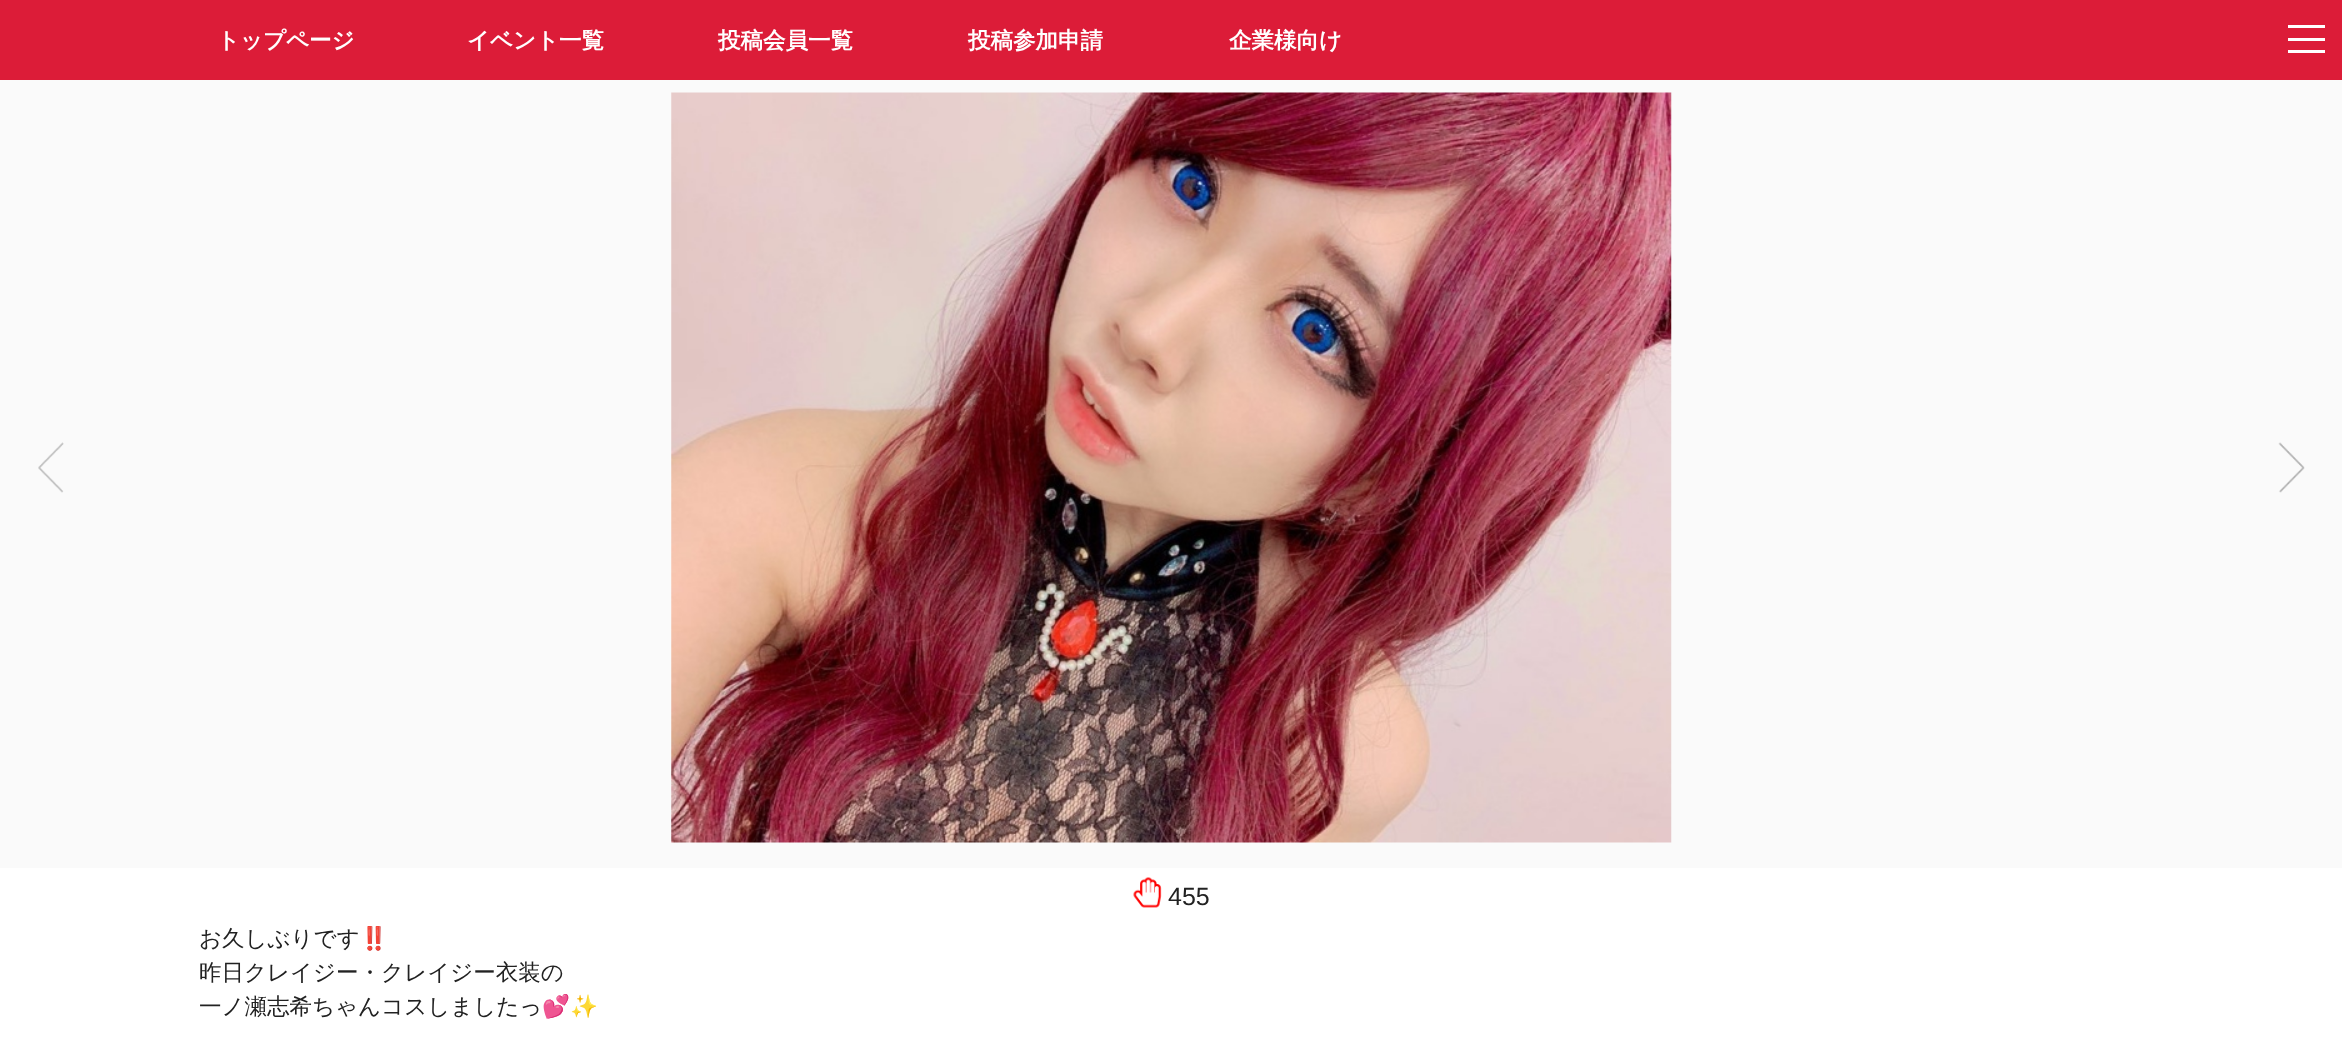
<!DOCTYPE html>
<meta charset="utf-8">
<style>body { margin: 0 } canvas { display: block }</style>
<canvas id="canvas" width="2342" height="1049"></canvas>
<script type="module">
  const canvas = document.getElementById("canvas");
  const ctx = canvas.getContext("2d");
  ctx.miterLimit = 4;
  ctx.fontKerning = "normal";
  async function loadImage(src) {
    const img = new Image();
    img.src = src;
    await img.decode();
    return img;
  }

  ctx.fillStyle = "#ffffff";
  ctx.fillRect(0, 0, 2342, 1049);
  ctx.fillStyle = "#dc1c38";
  ctx.fillRect(0, 0, 2342, 80);
  ctx.font = "bold 22.5px WenQuanYi Zen Hei";
  ctx.fillStyle = "#ffffff";
  ctx.fillText("トップページ", 217, 48);
  ctx.fillText("イベント一覧", 467, 48);
  ctx.fillText("投稿会員一覧", 718, 48);
  ctx.fillText("投稿参加申請", 968, 48);
  ctx.fillText("企業様向け", 1229, 48);
  ctx.fillRect(2288, 38, 37, 3);
  ctx.fillRect(2288, 25, 37, 3);
  ctx.fillRect(2288, 50, 37, 3);
  ctx.fillStyle = "#fafafa";
  ctx.fillRect(0, 80, 2342, 788);
  ctx.drawImage(await loadImage("img1.png"), 38, 442, 26, 51);
  ctx.drawImage(await loadImage("img2.png"), 671, 92, 1001, 751);
  ctx.drawImage(await loadImage("img3.png"), 2278, 442, 27, 51);
  ctx.drawImage(await loadImage("img4.png"), 1133, 877, 29, 31);
  ctx.font = "25px Liberation Sans";
  ctx.fillStyle = "#222222";
  ctx.fillText("455", 1168, 905);
  ctx.font = "500 22.5px WenQuanYi Zen Hei";
  ctx.fillText("お久しぶりです", 199, 946);
  ctx.font = "22.5px Noto Color Emoji";
  ctx.fillText("‼️", 360, 946);
  ctx.font = "500 22.5px WenQuanYi Zen Hei";
  ctx.fillText("昨日クレイジー・クレイジー衣装の", 199, 980);
  ctx.fillText("一ノ瀬志希ちゃんコスしましたっ", 199, 1014);
  ctx.font = "22.5px Noto Color Emoji";
  ctx.fillText("💕✨", 542, 1014);
</script>
